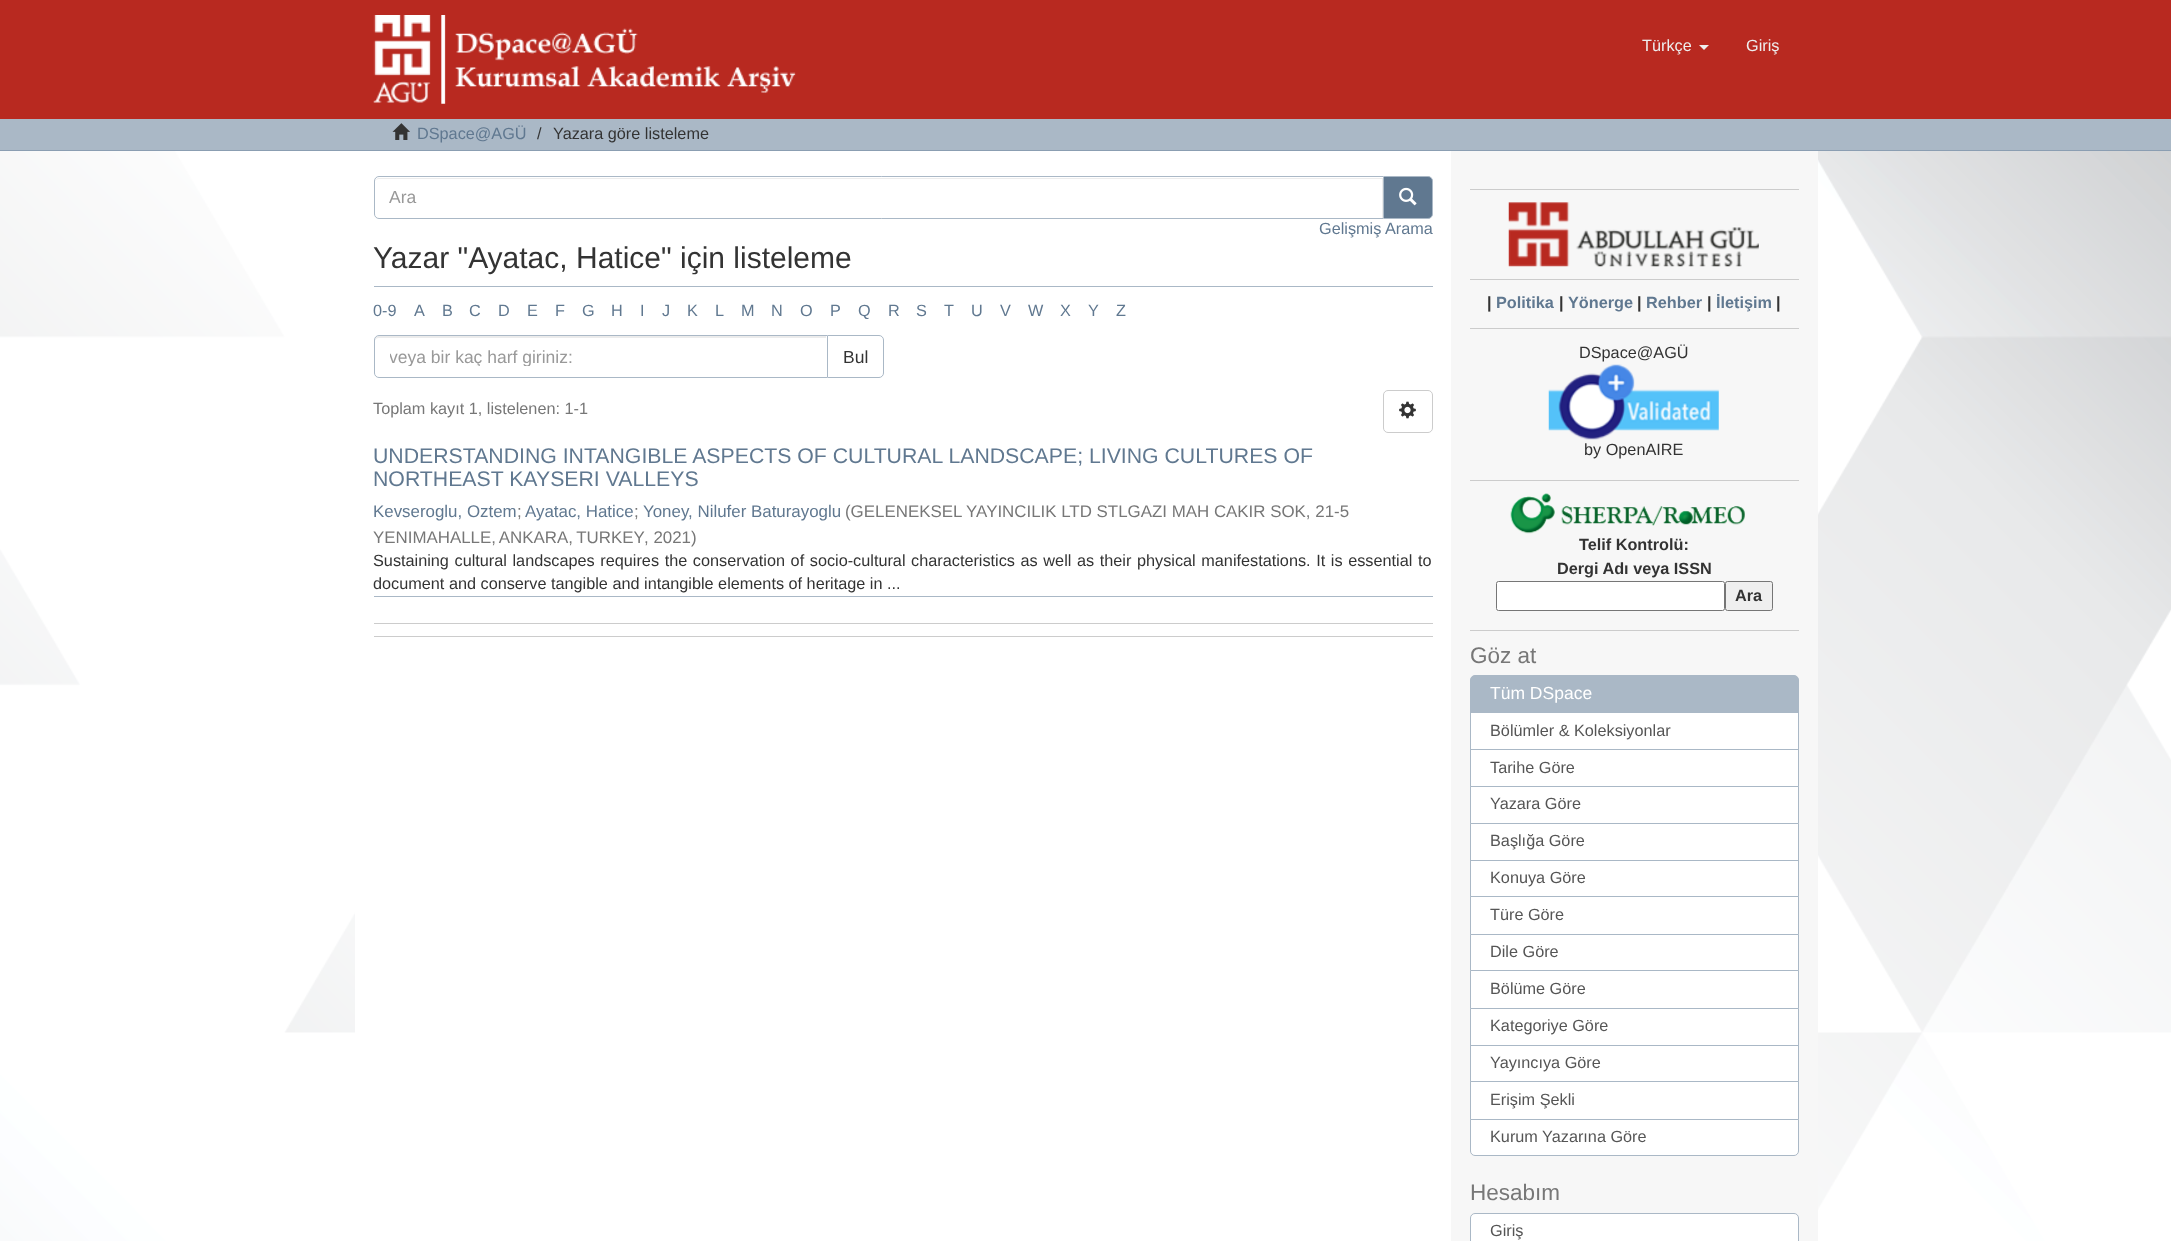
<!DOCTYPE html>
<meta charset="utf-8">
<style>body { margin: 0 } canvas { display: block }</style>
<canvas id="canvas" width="2171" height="1241"></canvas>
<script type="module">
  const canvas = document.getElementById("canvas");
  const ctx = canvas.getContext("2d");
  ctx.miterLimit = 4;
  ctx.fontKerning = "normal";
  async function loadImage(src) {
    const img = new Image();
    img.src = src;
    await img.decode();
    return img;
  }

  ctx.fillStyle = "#ffffff";
  ctx.fillRect(0, 0, 2171, 1241);
  ctx.drawImage(await loadImage("img1.png"), 0, 151, 2171, 1090);
  ctx.fillStyle = "#b82920";
  ctx.fillRect(0, 0, 2171, 119);
  ctx.drawImage(await loadImage("img2.png"), 373, 15, 423, 89);
  ctx.font = "16.25px Liberation Sans";
  ctx.fillStyle = "#eeeeee";
  ctx.fillText("Türkçe", 1642, 51);
  ctx.beginPath();
  ctx.moveTo(1699, 45);
  ctx.lineTo(1709, 45);
  ctx.lineTo(1704, 50);
  ctx.closePath();
  ctx.fill();
  ctx.fillText("Giriş", 1746, 51);
  ctx.fillStyle = "#aab8c6";
  ctx.fillRect(0, 119, 2171, 31);
  ctx.fillStyle = "#8b9eb2";
  ctx.fillRect(0, 150, 2171, 1);
  ctx.drawImage(await loadImage("img3.png"), 392, 123, 18, 17);
  ctx.fillStyle = "#607890";
  ctx.fillText("DSpace@AGÜ", 417, 139);
  ctx.fillStyle = "#333333";
  ctx.fillText("/", 537, 139);
  ctx.fillText("Yazara göre listeleme", 553, 139);
  ctx.fillStyle = "#f7f7f7";
  ctx.fillRect(1451, 151, 367, 1090);
  ctx.fillStyle = "#ffffff";
  ctx.fillRect(355, 151, 1096, 882);
  ctx.fillStyle = "#607890";
  ctx.beginPath();
  ctx.roundRect(1383.5, 176.5, 49, 42, [0, 4.5, 4.5, 0]);
  ctx.fill();
  ctx.strokeStyle = "#aab8c6";
  ctx.stroke();
  ctx.fillStyle = "#ffffff";
  ctx.beginPath();
  ctx.roundRect(374, 176, 1010, 43, [5, 0, 0, 5]);
  ctx.fill();
  ctx.fillStyle = "#ececec";
  ctx.beginPath();
  ctx.moveTo(379, 179);
  ctx.lineTo(1382, 179);
  ctx.lineTo(1382, 218);
  ctx.lineTo(1383, 218);
  ctx.lineTo(1383, 178);
  ctx.lineTo(379, 178);
  ctx.bezierCurveTo(377, 178, 375, 180, 375, 182);
  ctx.bezierCurveTo(375, 180, 377, 179, 379, 179);
  ctx.closePath();
  ctx.fill();
  ctx.beginPath();
  ctx.roundRect(374.5, 176.5, 1009, 42, [4.5, 0, 0, 4.5]);
  ctx.stroke();
  ctx.font = "17.5px Liberation Sans";
  ctx.fillStyle = "#999999";
  ctx.fillText("Ara", 389, 203);
  ctx.drawImage(await loadImage("img4.png"), 1399, 187, 18, 19);
  ctx.font = "16.25px Liberation Sans";
  ctx.fillStyle = "#607890";
  ctx.fillText("Gelişmiş Arama", 1319, 234);
  ctx.fillStyle = "#aab8c6";
  ctx.fillRect(374, 286, 1059, 1);
  ctx.font = "30px Liberation Sans";
  ctx.fillStyle = "#333333";
  ctx.fillText("Yazar \"Ayatac, Hatice\" için listeleme", 373, 268);
  ctx.font = "16.25px Liberation Sans";
  ctx.fillStyle = "#607890";
  ctx.fillText("0-9", 373, 316);
  ctx.fillText("A", 414, 316);
  ctx.fillText("B", 442, 316);
  ctx.fillText("C", 469, 316);
  ctx.fillText("D", 498, 316);
  ctx.fillText("E", 527, 316);
  ctx.fillText("F", 555, 316);
  ctx.fillText("G", 582, 316);
  ctx.fillText("H", 611, 316);
  ctx.fillText("I", 640, 316);
  ctx.fillText("J", 662, 316);
  ctx.fillText("K", 687, 316);
  ctx.fillText("L", 715, 316);
  ctx.fillText("M", 741, 316);
  ctx.fillText("N", 771, 316);
  ctx.fillText("O", 800, 316);
  ctx.fillText("P", 830, 316);
  ctx.fillText("Q", 858, 316);
  ctx.fillText("R", 888, 316);
  ctx.fillText("S", 916, 316);
  ctx.fillText("T", 944, 316);
  ctx.fillText("U", 971, 316);
  ctx.fillText("V", 1000, 316);
  ctx.fillText("W", 1028, 316);
  ctx.fillText("X", 1060, 316);
  ctx.fillText("Y", 1088, 316);
  ctx.fillText("Z", 1116, 316);
  ctx.beginPath();
  ctx.roundRect(826.5, 335.5, 57, 42, [0, 4.5, 4.5, 0]);
  ctx.stroke();
  ctx.fillStyle = "#ffffff";
  ctx.beginPath();
  ctx.roundRect(374, 335, 454, 43, [5, 0, 0, 5]);
  ctx.fill();
  ctx.fillStyle = "#ececec";
  ctx.beginPath();
  ctx.moveTo(379, 338);
  ctx.lineTo(826, 338);
  ctx.lineTo(826, 336);
  ctx.lineTo(379, 336);
  ctx.bezierCurveTo(377, 336, 375, 338, 375, 340);
  ctx.lineTo(375, 341);
  ctx.bezierCurveTo(375, 339, 377, 338, 379, 338);
  ctx.closePath();
  ctx.fill();
  ctx.beginPath();
  ctx.roundRect(374.5, 335.5, 453, 42, [4.5, 0, 0, 4.5]);
  ctx.stroke();
  ctx.save();
  ctx.beginPath();
  ctx.rect(390, 346, 421, 20);
  ctx.clip();
  ctx.font = "17.5px Liberation Sans";
  ctx.fillStyle = "#999999";
  ctx.fillText("veya bir kaç harf giriniz:", 389, 363);
  ctx.restore();
  ctx.font = "17.5px Liberation Sans";
  ctx.fillStyle = "#333333";
  ctx.fillText("Bul", 843, 363);
  ctx.font = "16.25px Liberation Sans";
  ctx.fillStyle = "#777777";
  ctx.fillText("Toplam kayıt 1, listelenen: 1-1", 373, 414);
  ctx.beginPath();
  ctx.roundRect(1383.5, 390.5, 49, 42, 4.5);
  ctx.strokeStyle = "#cccccc";
  ctx.stroke();
  ctx.drawImage(await loadImage("img5.png"), 1399, 401, 17, 18);
  ctx.font = "21.25px Liberation Sans";
  ctx.fillStyle = "#607890";
  ctx.fillText("UNDERSTANDING INTANGIBLE ASPECTS OF CULTURAL LANDSCAPE; LIVING CULTURES OF", 373, 463);
  ctx.fillText("NORTHEAST KAYSERI VALLEYS", 373, 486);
  ctx.font = "16.9px Liberation Sans";
  ctx.fillText("Kevseroglu, Oztem", 373, 517);
  ctx.fillStyle = "#777777";
  ctx.fillText(";", 517, 517);
  ctx.fillStyle = "#607890";
  ctx.fillText("Ayatac, Hatice", 525, 517);
  ctx.fillStyle = "#777777";
  ctx.fillText(";", 634, 517);
  ctx.fillStyle = "#607890";
  ctx.fillText("Yoney, Nilufer Baturayoglu", 643, 517);
  ctx.fillStyle = "#777777";
  ctx.fillText("(GELENEKSEL YAYINCILIK LTD STLGAZI MAH CAKIR SOK, 21-5", 845, 517);
  ctx.wordSpacing = "-1px";
  ctx.fillText("YENIMAHALLE, ANKARA, TURKEY", 373, 543);
  ctx.wordSpacing = "0px";
  ctx.fillText(", 2021)", 644, 543);
  ctx.fillStyle = "#aab8c6";
  ctx.fillRect(374, 596, 1059, 1);
  ctx.wordSpacing = "1.1px";
  ctx.font = "16.25px Liberation Sans";
  ctx.fillStyle = "#333333";
  ctx.fillText("Sustaining cultural landscapes requires the conservation of socio-cultural characteristics as well as their physical manifestations. It is essential to", 373, 566);
  ctx.wordSpacing = "0px";
  ctx.fillText("document and conserve tangible and intangible elements of heritage in ...", 373, 589);
  ctx.fillStyle = "#cccccc";
  ctx.fillRect(374, 623, 1059, 1);
  ctx.fillRect(374, 636, 1059, 1);
  ctx.fillRect(1470, 189, 329, 1);
  ctx.drawImage(await loadImage("img6.png"), 1508, 202, 251, 65);
  ctx.fillRect(1470, 279, 329, 1);
  ctx.font = "bold 16.25px Liberation Sans";
  ctx.fillStyle = "#333333";
  ctx.fillText("|", 1487, 308);
  ctx.fillStyle = "#607890";
  ctx.fillText("Politika", 1496, 308);
  ctx.fillStyle = "#333333";
  ctx.fillText("|", 1559, 308);
  ctx.fillStyle = "#607890";
  ctx.fillText("Yönerge", 1568, 308);
  ctx.fillStyle = "#333333";
  ctx.fillText("|", 1637, 308);
  ctx.fillStyle = "#607890";
  ctx.fillText("Rehber", 1646, 308);
  ctx.fillStyle = "#333333";
  ctx.fillText("|", 1707, 308);
  ctx.fillStyle = "#607890";
  ctx.fillText("İletişim", 1716, 308);
  ctx.fillStyle = "#333333";
  ctx.fillText("|", 1776, 308);
  ctx.fillStyle = "#cccccc";
  ctx.fillRect(1470, 328, 329, 1);
  ctx.font = "16.25px Liberation Sans";
  ctx.fillStyle = "#333333";
  ctx.fillText("DSpace@AGÜ", 1579, 358);
  ctx.drawImage(await loadImage("img7.png"), 1548, 364, 171, 76);
  ctx.fillText("by OpenAIRE", 1584, 455);
  ctx.fillStyle = "#cccccc";
  ctx.fillRect(1470, 480, 329, 1);
  ctx.drawImage(await loadImage("img8.png"), 1510, 493, 235, 41);
  ctx.font = "bold 16.25px Liberation Sans";
  ctx.fillStyle = "#333333";
  ctx.fillText("Telif Kontrolü:", 1579, 550);
  ctx.fillText("Dergi Adı veya ISSN", 1557, 574);
  ctx.fillStyle = "#ffffff";
  ctx.beginPath();
  ctx.roundRect(1496.5, 581.5, 228, 29, 2);
  ctx.fill();
  ctx.strokeStyle = "#767676";
  ctx.stroke();
  ctx.fillStyle = "#efefef";
  ctx.beginPath();
  ctx.roundRect(1725.5, 581.5, 47, 29, 2);
  ctx.fill();
  ctx.stroke();
  ctx.fillStyle = "#333333";
  ctx.fillText("Ara", 1735, 601);
  ctx.fillStyle = "#cccccc";
  ctx.fillRect(1470, 630, 329, 1);
  ctx.font = "22.5px Liberation Sans";
  ctx.fillStyle = "#777777";
  ctx.fillText("Göz at", 1470, 663);
  ctx.fillStyle = "#ffffff";
  ctx.fillRect(1471, 713, 327, 36);
  ctx.strokeStyle = "#aab8c6";
  ctx.strokeRect(1470.5, 711.5, 328, 38);
  ctx.fillStyle = "#aab8c6";
  ctx.beginPath();
  ctx.roundRect(1470.5, 675.5, 328, 37, [4.5, 4.5, 0, 0]);
  ctx.fill();
  ctx.stroke();
  ctx.font = "17.5px Liberation Sans";
  ctx.fillStyle = "#ffffff";
  ctx.fillText("Tüm DSpace", 1490, 699);
  ctx.font = "16.25px Liberation Sans";
  ctx.fillStyle = "#555555";
  ctx.fillText("Bölümler & Koleksiyonlar", 1490, 736);
  ctx.fillStyle = "#ffffff";
  ctx.fillRect(1471, 750, 327, 36);
  ctx.strokeRect(1470.5, 749.5, 328, 38);
  ctx.fillStyle = "#555555";
  ctx.fillText("Tarihe Göre", 1490, 773);
  ctx.fillStyle = "#ffffff";
  ctx.beginPath();
  ctx.rect(1470.5, 786.5, 328, 37);
  ctx.fill();
  ctx.stroke();
  ctx.fillStyle = "#555555";
  ctx.fillText("Yazara Göre", 1490, 809);
  ctx.fillStyle = "#ffffff";
  ctx.beginPath();
  ctx.rect(1470.5, 823.5, 328, 37);
  ctx.fill();
  ctx.stroke();
  ctx.fillStyle = "#555555";
  ctx.fillText("Başlığa Göre", 1490, 846);
  ctx.fillStyle = "#ffffff";
  ctx.fillRect(1471, 861, 327, 35);
  ctx.strokeRect(1470.5, 860.5, 328, 37);
  ctx.fillStyle = "#555555";
  ctx.fillText("Konuya Göre", 1490, 883);
  ctx.fillStyle = "#ffffff";
  ctx.beginPath();
  ctx.rect(1470.5, 896.5, 328, 38);
  ctx.fill();
  ctx.stroke();
  ctx.fillStyle = "#555555";
  ctx.fillText("Türe Göre", 1490, 920);
  ctx.fillStyle = "#ffffff";
  ctx.beginPath();
  ctx.rect(1470.5, 934.5, 328, 36);
  ctx.fill();
  ctx.stroke();
  ctx.fillStyle = "#555555";
  ctx.fillText("Dile Göre", 1490, 957);
  ctx.fillStyle = "#ffffff";
  ctx.beginPath();
  ctx.rect(1470.5, 970.5, 328, 38);
  ctx.fill();
  ctx.stroke();
  ctx.fillStyle = "#555555";
  ctx.fillText("Bölüme Göre", 1490, 994);
  ctx.fillStyle = "#ffffff";
  ctx.beginPath();
  ctx.rect(1470.5, 1008.5, 328, 37);
  ctx.fill();
  ctx.stroke();
  ctx.fillStyle = "#555555";
  ctx.fillText("Kategoriye Göre", 1490, 1031);
  ctx.fillStyle = "#ffffff";
  ctx.fillRect(1471, 1046, 327, 35);
  ctx.strokeRect(1470.5, 1045.5, 328, 37);
  ctx.fillStyle = "#555555";
  ctx.fillText("Yayıncıya Göre", 1490, 1068);
  ctx.fillStyle = "#ffffff";
  ctx.beginPath();
  ctx.rect(1470.5, 1081.5, 328, 38);
  ctx.fill();
  ctx.stroke();
  ctx.fillStyle = "#555555";
  ctx.fillText("Erişim Şekli", 1490, 1105);
  ctx.fillStyle = "#ffffff";
  ctx.beginPath();
  ctx.roundRect(1470.5, 1119.5, 328, 36, [0, 0, 4.5, 4.5]);
  ctx.fill();
  ctx.stroke();
  ctx.fillStyle = "#555555";
  ctx.fillText("Kurum Yazarına Göre", 1490, 1142);
  ctx.font = "22.5px Liberation Sans";
  ctx.fillStyle = "#777777";
  ctx.fillText("Hesabım", 1470, 1200);
  ctx.fillStyle = "#ffffff";
  ctx.beginPath();
  ctx.moveTo(1475, 1213.5);
  ctx.lineTo(1794, 1213.5);
  ctx.bezierCurveTo(1796.5, 1213.5, 1798.5, 1215.5, 1798.5, 1218);
  ctx.lineTo(1798.5, 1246.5);
  ctx.lineTo(1470.5, 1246.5);
  ctx.lineTo(1470.5, 1218);
  ctx.bezierCurveTo(1470.5, 1215.5, 1472.5, 1213.5, 1475, 1213.5);
  ctx.closePath();
  ctx.fill();
  ctx.stroke();
  ctx.font = "16.25px Liberation Sans";
  ctx.fillStyle = "#555555";
  ctx.fillText("Giriş", 1490, 1236);
</script>
